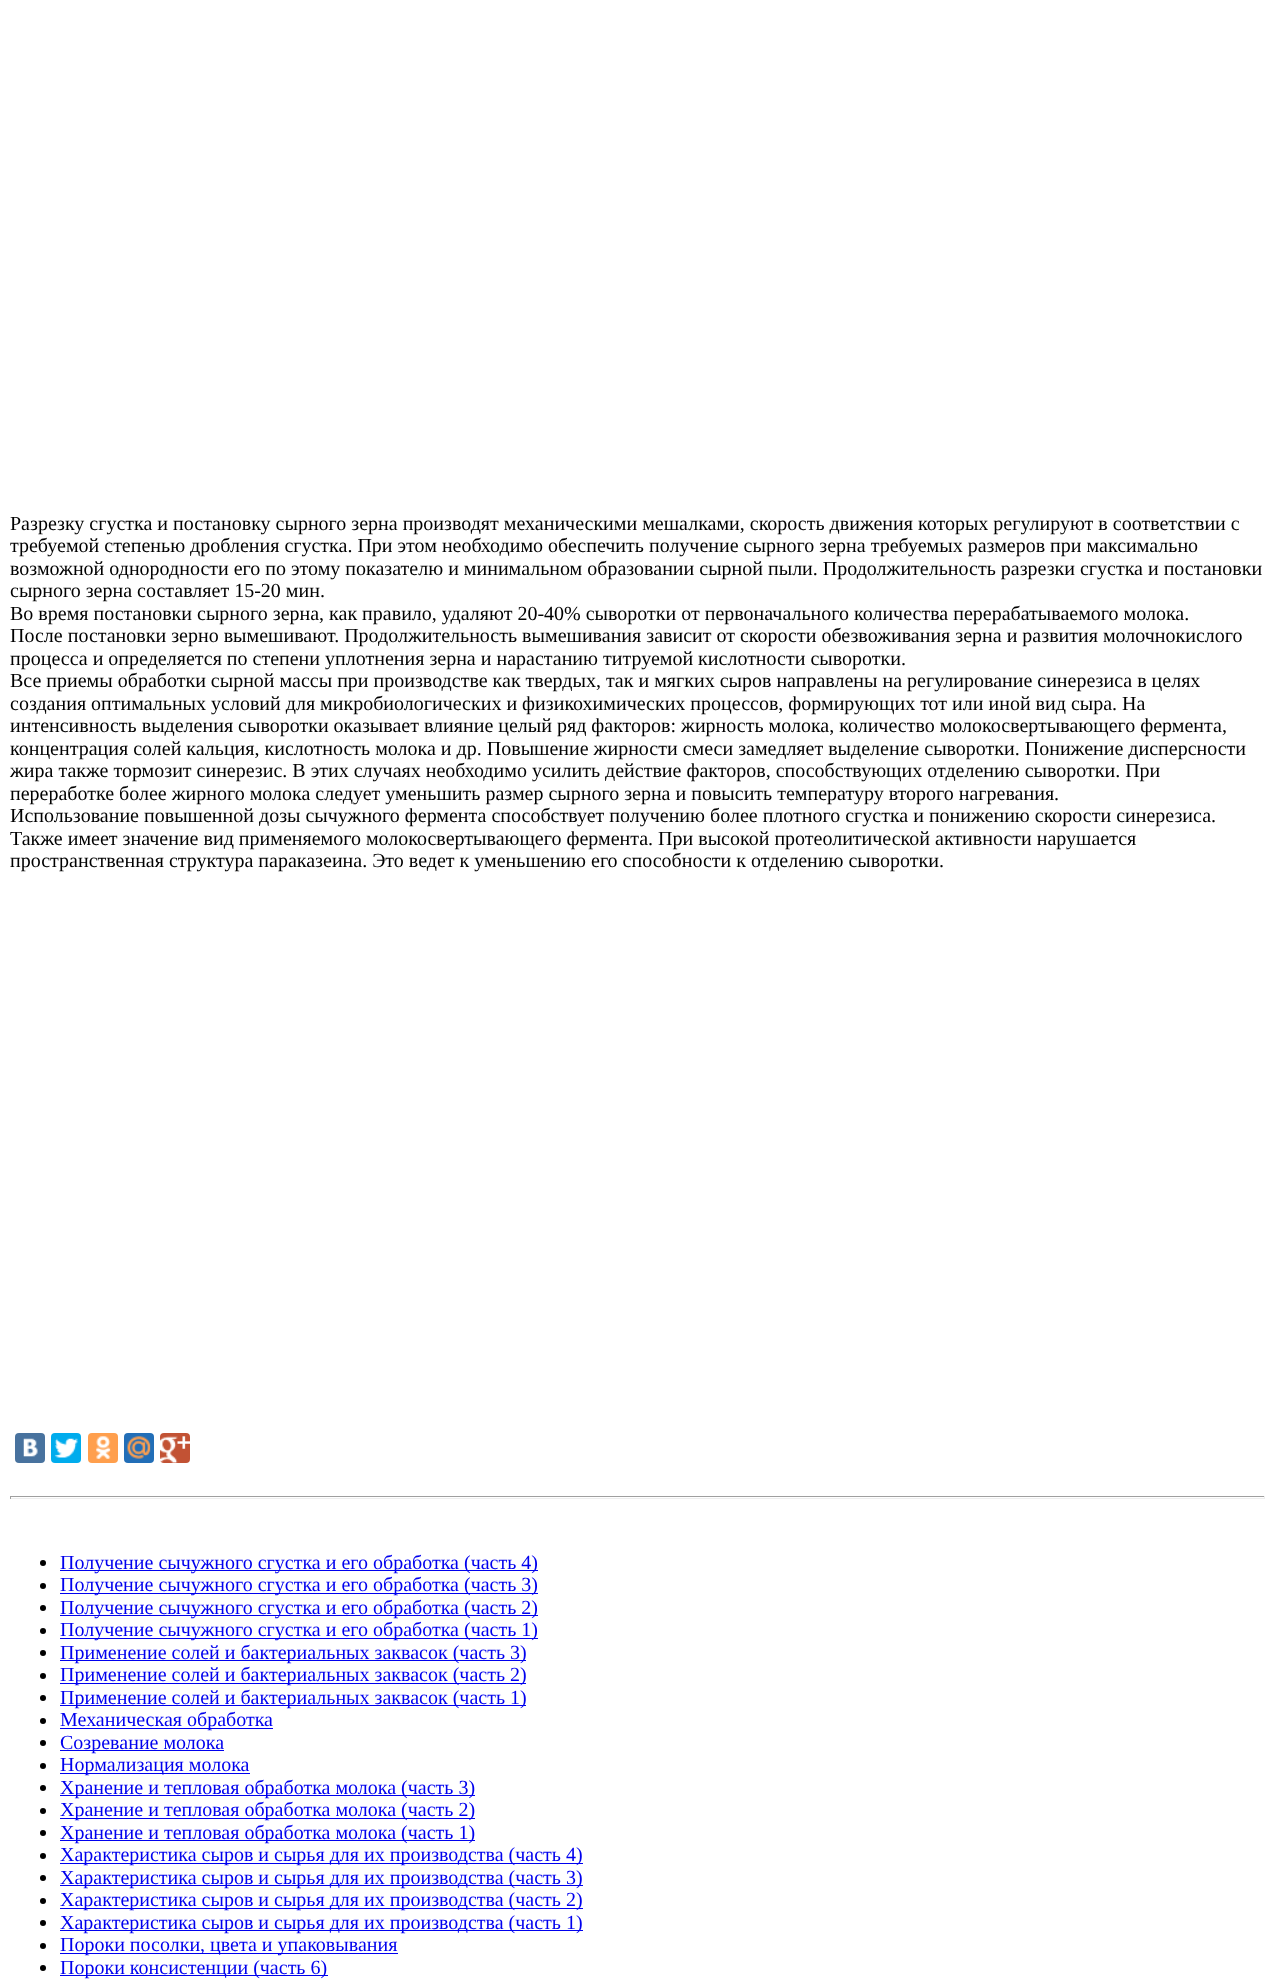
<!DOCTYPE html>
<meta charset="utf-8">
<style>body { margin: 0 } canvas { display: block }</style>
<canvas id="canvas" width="1274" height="1985"></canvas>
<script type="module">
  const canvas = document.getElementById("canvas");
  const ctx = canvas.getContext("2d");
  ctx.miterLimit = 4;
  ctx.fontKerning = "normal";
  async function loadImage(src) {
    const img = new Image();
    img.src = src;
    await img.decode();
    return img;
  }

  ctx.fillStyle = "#ffffff";
  ctx.fillRect(0, 0, 1274, 1985);
  ctx.font = "20px Liberation Serif";
  ctx.fillStyle = "#000000";
  ctx.fillText("Разрезку сгустка и постановку сырного зерна производят механическими мешалками, скорость движения которых регулируют в соответствии с", 10, 530);
  ctx.fillText("требуемой степенью дробления сгустка. При этом необходимо обеспечить получение сырного зерна требуемых размеров при максимально", 10, 552);
  ctx.fillText("возможной однородности его по этому показателю и минимальном образовании сырной пыли. Продолжительность разрезки сгустка и постановки", 10, 575);
  ctx.fillText("сырного зерна составляет 15-20 мин.", 10, 597);
  ctx.fillText("Во время постановки сырного зерна, как правило, удаляют 20-40% сыворотки от первоначального количества перерабатываемого молока.", 10, 620);
  ctx.fillText("После постановки зерно вымешивают. Продолжительность вымешивания зависит от скорости обезвоживания зерна и развития молочнокислого", 10, 642);
  ctx.fillText("процесса и определяется по степени уплотнения зерна и нарастанию титруемой кислотности сыворотки.", 10, 665);
  ctx.fillText("Все приемы обработки сырной массы при производстве как твердых, так и мягких сыров направлены на регулирование синерезиса в целях", 10, 687);
  ctx.fillText("создания оптимальных условий для микробиологических и физикохимических процессов, формирующих тот или иной вид сыра. На", 10, 710);
  ctx.fillText("интенсивность выделения сыворотки оказывает влияние целый ряд факторов: жирность молока, количество молокосвертывающего фермента,", 10, 732);
  ctx.fillText("концентрация солей кальция, кислотность молока и др. Повышение жирности смеси замедляет выделение сыворотки. Понижение дисперсности", 10, 755);
  ctx.fillText("жира также тормозит синерезис. В этих случаях необходимо усилить действие факторов, способствующих отделению сыворотки. При", 10, 777);
  ctx.fillText("переработке более жирного молока следует уменьшить размер сырного зерна и повысить температуру второго нагревания.", 10, 800);
  ctx.fillText("Использование повышенной дозы сычужного фермента способствует получению более плотного сгустка и понижению скорости синерезиса.", 10, 822);
  ctx.fillText("Также имеет значение вид применяемого молокосвертывающего фермента. При высокой протеолитической активности нарушается", 10, 845);
  ctx.fillText("пространственная структура параказеина. Это ведет к уменьшению его способности к отделению сыворотки.", 10, 867);
  ctx.fillStyle = "#48729e";
  ctx.beginPath();
  ctx.roundRect(15, 1433, 30, 30, 4);
  ctx.fill();
  ctx.drawImage(await loadImage("img1.png"), 23, 1438, 15, 19);
  ctx.fillStyle = "#00aced";
  ctx.beginPath();
  ctx.roundRect(51, 1433, 30, 30, 4);
  ctx.fill();
  ctx.drawImage(await loadImage("img2.png"), 54, 1438, 24, 20);
  ctx.fillStyle = "#ff9f4d";
  ctx.beginPath();
  ctx.roundRect(88, 1433, 30, 30, 4);
  ctx.fill();
  ctx.drawImage(await loadImage("img3.png"), 96, 1436, 15, 23);
  ctx.fillStyle = "#226eb7";
  ctx.beginPath();
  ctx.roundRect(124, 1433, 30, 30, 4);
  ctx.fill();
  ctx.drawImage(await loadImage("img4.png"), 127, 1436, 24, 23);
  ctx.fillStyle = "#c25234";
  ctx.beginPath();
  ctx.roundRect(160, 1433, 30, 30, 4);
  ctx.fill();
  ctx.drawImage(await loadImage("img5.png"), 160, 1436, 30, 27);
  ctx.fillStyle = "#9f9f9f";
  ctx.fillRect(10, 1496, 1255, 1);
  ctx.fillStyle = "#eeeeee";
  ctx.fillRect(1264, 1496, 1, 3);
  ctx.fillRect(10, 1498, 1255, 1);
  ctx.fillStyle = "#9f9f9f";
  ctx.fillRect(10, 1496, 1, 3);
  ctx.fillStyle = "#000000";
  ctx.beginPath();
  ctx.arc(43, 1563, 3, 0, Math.PI * 2);
  ctx.fill();
  ctx.fillStyle = "#0000ee";
  ctx.fillRect(60, 1570, 478, 1);
  ctx.fillText("Получение сычужного сгустка и его обработка (часть 4)", 60, 1569);
  ctx.fillStyle = "#000000";
  ctx.beginPath();
  ctx.arc(43, 1586, 3, 0, Math.PI * 2);
  ctx.fill();
  ctx.fillStyle = "#0000ee";
  ctx.fillRect(60, 1593, 478, 1);
  ctx.fillText("Получение сычужного сгустка и его обработка (часть 3)", 60, 1591);
  ctx.fillStyle = "#000000";
  ctx.beginPath();
  ctx.arc(43, 1608, 3, 0, Math.PI * 2);
  ctx.fill();
  ctx.fillStyle = "#0000ee";
  ctx.fillRect(60, 1615, 478, 1);
  ctx.fillText("Получение сычужного сгустка и его обработка (часть 2)", 60, 1614);
  ctx.fillStyle = "#000000";
  ctx.beginPath();
  ctx.arc(43, 1631, 3, 0, Math.PI * 2);
  ctx.fill();
  ctx.fillStyle = "#0000ee";
  ctx.fillRect(60, 1638, 478, 1);
  ctx.fillText("Получение сычужного сгустка и его обработка (часть 1)", 60, 1636);
  ctx.fillStyle = "#000000";
  ctx.beginPath();
  ctx.arc(43, 1653, 3, 0, Math.PI * 2);
  ctx.fill();
  ctx.fillStyle = "#0000ee";
  ctx.fillRect(60, 1660, 466, 1);
  ctx.fillText("Применение солей и бактериальных заквасок (часть 3)", 60, 1659);
  ctx.fillStyle = "#000000";
  ctx.beginPath();
  ctx.arc(43, 1676, 3, 0, Math.PI * 2);
  ctx.fill();
  ctx.fillStyle = "#0000ee";
  ctx.fillRect(60, 1683, 466, 1);
  ctx.fillText("Применение солей и бактериальных заквасок (часть 2)", 60, 1681);
  ctx.fillStyle = "#000000";
  ctx.beginPath();
  ctx.arc(43, 1698, 3, 0, Math.PI * 2);
  ctx.fill();
  ctx.fillStyle = "#0000ee";
  ctx.fillRect(60, 1705, 466, 1);
  ctx.fillText("Применение солей и бактериальных заквасок (часть 1)", 60, 1704);
  ctx.fillStyle = "#000000";
  ctx.beginPath();
  ctx.arc(43, 1721, 3, 0, Math.PI * 2);
  ctx.fill();
  ctx.fillStyle = "#0000ee";
  ctx.fillRect(60, 1728, 213, 1);
  ctx.fillText("Механическая обработка", 60, 1726);
  ctx.fillStyle = "#000000";
  ctx.beginPath();
  ctx.arc(43, 1743, 3, 0, Math.PI * 2);
  ctx.fill();
  ctx.fillStyle = "#0000ee";
  ctx.fillRect(60, 1750, 164, 1);
  ctx.fillText("Созревание молока", 60, 1749);
  ctx.fillStyle = "#000000";
  ctx.beginPath();
  ctx.arc(43, 1766, 3, 0, Math.PI * 2);
  ctx.fill();
  ctx.fillStyle = "#0000ee";
  ctx.fillRect(60, 1773, 190, 1);
  ctx.fillText("Нормализация молока", 60, 1771);
  ctx.fillStyle = "#000000";
  ctx.beginPath();
  ctx.arc(43, 1788, 3, 0, Math.PI * 2);
  ctx.fill();
  ctx.fillStyle = "#0000ee";
  ctx.fillRect(60, 1795, 415, 1);
  ctx.fillText("Хранение и тепловая обработка молока (часть 3)", 60, 1794);
  ctx.fillStyle = "#000000";
  ctx.beginPath();
  ctx.arc(43, 1811, 3, 0, Math.PI * 2);
  ctx.fill();
  ctx.fillStyle = "#0000ee";
  ctx.fillRect(60, 1818, 415, 1);
  ctx.fillText("Хранение и тепловая обработка молока (часть 2)", 60, 1816);
  ctx.fillStyle = "#000000";
  ctx.beginPath();
  ctx.arc(43, 1833, 3, 0, Math.PI * 2);
  ctx.fill();
  ctx.fillStyle = "#0000ee";
  ctx.fillRect(60, 1840, 415, 1);
  ctx.fillText("Хранение и тепловая обработка молока (часть 1)", 60, 1839);
  ctx.fillStyle = "#000000";
  ctx.beginPath();
  ctx.arc(43, 1856, 3, 0, Math.PI * 2);
  ctx.fill();
  ctx.fillStyle = "#0000ee";
  ctx.fillRect(60, 1863, 523, 1);
  ctx.fillText("Характеристика сыров и сырья для их производства (часть 4)", 60, 1861);
  ctx.fillStyle = "#000000";
  ctx.beginPath();
  ctx.arc(43, 1878, 3, 0, Math.PI * 2);
  ctx.fill();
  ctx.fillStyle = "#0000ee";
  ctx.fillRect(60, 1885, 523, 1);
  ctx.fillText("Характеристика сыров и сырья для их производства (часть 3)", 60, 1884);
  ctx.fillStyle = "#000000";
  ctx.beginPath();
  ctx.arc(43, 1901, 3, 0, Math.PI * 2);
  ctx.fill();
  ctx.fillStyle = "#0000ee";
  ctx.fillRect(60, 1908, 523, 1);
  ctx.fillText("Характеристика сыров и сырья для их производства (часть 2)", 60, 1906);
  ctx.fillStyle = "#000000";
  ctx.beginPath();
  ctx.arc(43, 1923, 3, 0, Math.PI * 2);
  ctx.fill();
  ctx.fillStyle = "#0000ee";
  ctx.fillRect(60, 1930, 523, 1);
  ctx.fillText("Характеристика сыров и сырья для их производства (часть 1)", 60, 1929);
  ctx.fillStyle = "#000000";
  ctx.beginPath();
  ctx.arc(43, 1946, 3, 0, Math.PI * 2);
  ctx.fill();
  ctx.fillStyle = "#0000ee";
  ctx.fillRect(60, 1953, 338, 1);
  ctx.fillText("Пороки посолки, цвета и упаковывания", 60, 1951);
  ctx.fillStyle = "#000000";
  ctx.beginPath();
  ctx.arc(43, 1968, 3, 0, Math.PI * 2);
  ctx.fill();
  ctx.fillStyle = "#0000ee";
  ctx.fillRect(60, 1975, 268, 1);
  ctx.fillText("Пороки консистенции (часть 6)", 60, 1974);
</script>
